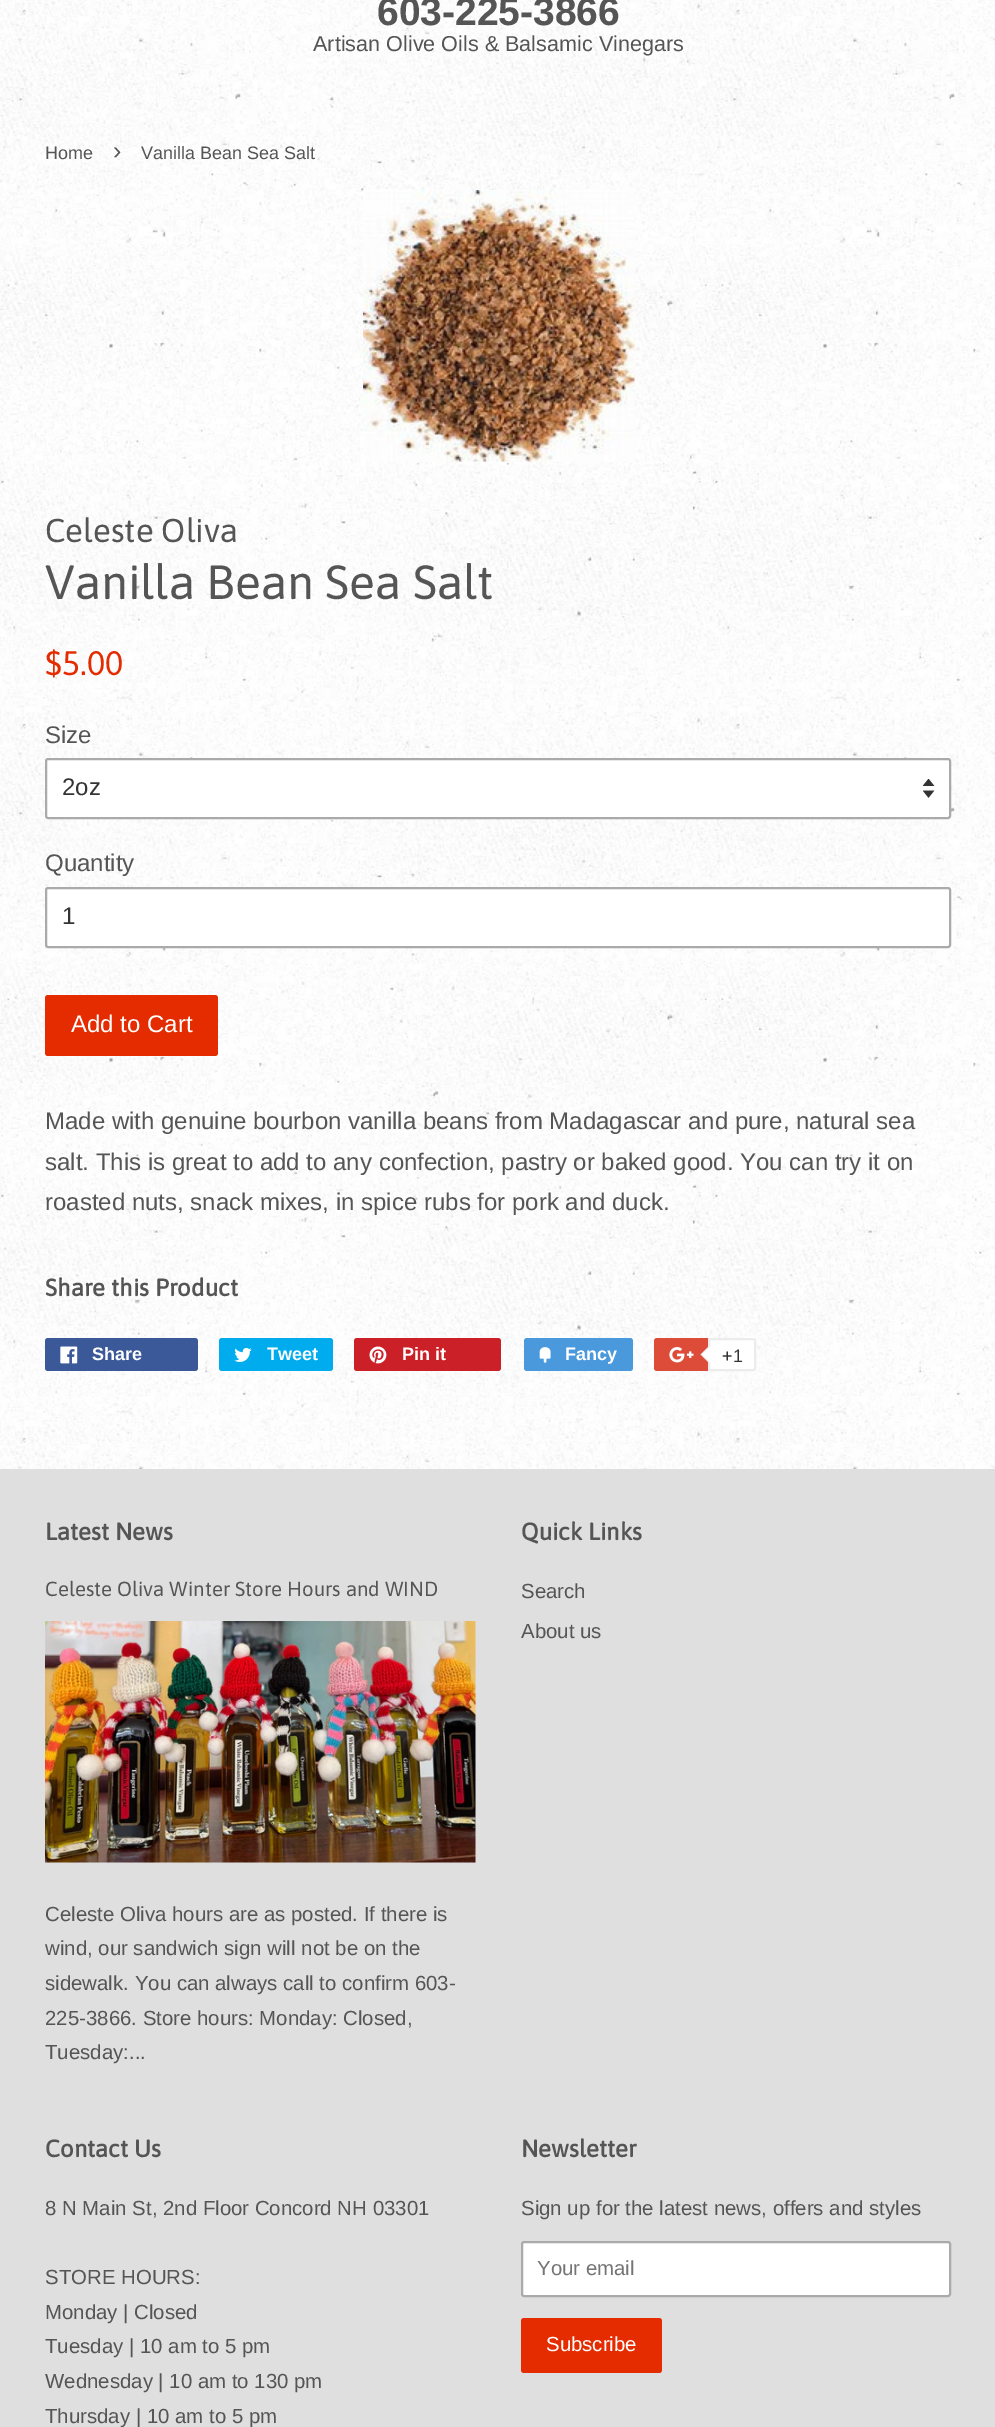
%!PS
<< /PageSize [995 2427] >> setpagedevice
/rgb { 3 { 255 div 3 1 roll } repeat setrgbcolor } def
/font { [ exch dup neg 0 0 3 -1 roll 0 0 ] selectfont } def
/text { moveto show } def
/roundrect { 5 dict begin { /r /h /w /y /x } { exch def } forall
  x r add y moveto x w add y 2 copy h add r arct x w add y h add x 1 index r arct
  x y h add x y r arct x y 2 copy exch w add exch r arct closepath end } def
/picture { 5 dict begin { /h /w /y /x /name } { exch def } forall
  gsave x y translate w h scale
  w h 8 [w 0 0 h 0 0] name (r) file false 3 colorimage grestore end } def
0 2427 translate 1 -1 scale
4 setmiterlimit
255 255 255 rgb
0 0 995 2427 rectfill
(img_01.rgb) 0 0 995 1469 picture
(img_02.rgb) 363 190 272 272 picture
45 758 906 61 3 roundrect fill
(img_03.rgb) 923 779 12 19 picture
170 170 170 rgb
2 setlinewidth
46 759 904 59 2 roundrect stroke
255 255 255 rgb
46 888 904 59 2 roundrect gsave fill grestore
170 170 170 rgb
stroke
228 44 0 rgb
45 995 173 61 3 roundrect fill
59 89 152 rgb
45 1338 153 33 3 roundrect fill
(img_04.rgb) 60 1346 18 18 picture
0 172 237 rgb
219 1338 114 33 3 roundrect fill
(img_05.rgb) 234 1347 18 15 picture
203 32 39 rgb
354 1338 147 33 3 roundrect fill
(img_06.rgb) 369 1346 18 18 picture
73 153 220 rgb
524 1338 109 33 3 roundrect fill
(img_07.rgb) 539 1347 12 16 picture
221 75 57 rgb
654 1338 99 33 3 roundrect fill
(img_08.rgb) 669 1347 25 16 picture
255 255 255 rgb
709 1339 moveto 44 0 rlineto 1 0 2 1 2 2 rcurveto 0 27 rlineto 0 1 -1 2 -2 2 rcurveto -44 0 rlineto closepath gsave fill grestore
236 236 236 rgb
stroke
709.5 1345.5 moveto 0 18 rlineto -9 -9 rlineto closepath fill
255 255 255 rgb
711 1345.5 moveto 0 18 rlineto -9 -9 rlineto closepath fill
223 223 223 rgb
0 1469 995 958 rectfill
(img_09.rgb) 45 1621 431 242 picture
255 255 255 rgb
522 2242 428 54 2 roundrect gsave fill grestore
170 170 170 rgb
stroke
228 44 0 rgb
521 2318 141 55 3 roundrect fill
/LiberationSans-Bold 39 font
85 85 85 rgb
(603-225-3866) 377 25 text
/LiberationSans-Regular 21.6 font
(Artisan Olive Oils & Balsamic Vinegars) 313 51 text
/LiberationSans-Regular 18 font
(Home) 45 159 text
/LiberationSans-Regular 25 font
(›) 113 159 text
/LiberationSans-Regular 18 font
(Vanilla Bean Sea Salt) 141 159 text
/Asap-Regular 33 font
(Celeste Oliva) 45 542 text
/Asap-Regular 48 font
(Vanilla Bean Sea Salt) 45 599 text
/Asap-Regular 34 font
228 44 0 rgb
($5.00) 45 675 text
/LiberationSans-Regular 24 font
85 85 85 rgb
(Size) 45 743 text
51 51 51 rgb
(2oz) 62 795 text
85 85 85 rgb
(Quantity) 45 871 text
51 51 51 rgb
(1) 62 924 text
255 255 255 rgb
(Add to Cart) 71 1032 text
85 85 85 rgb
(Made with genuine bourbon vanilla beans from Madagascar and pure, natural sea) 45 1129 text
(salt. This is great to add to any confection, pastry or baked good. You can try it on) 45 1170 text
(roasted nuts, snack mixes, in spice rubs for pork and duck.) 45 1210 text
/Asap-Bold 24 font
(Share this Product) 45 1296 text
/LiberationSans-Bold 18 font
255 255 255 rgb
(Share) 92 1360 text
(Tweet) 267 1360 text
(Pin it) 402 1360 text
(Fancy) 565 1360 text
/LiberationSans-Regular 18 font
51 51 51 rgb
(+1) 722 1362 text
/Asap-Bold 24 font
85 85 85 rgb
(Latest News) 45 1540 text
/Asap-Regular 20.4 font
(Celeste Oliva Winter Store Hours and WIND) 45 1596 text
/LiberationSans-Regular 20.4 font
(Celeste Oliva hours are as posted. If there is) 45 1921 text
(wind, our sandwich sign will not be on the) 45 1955 text
(sidewalk. You can always call to confirm 603-) 45 1990 text
(225-3866. Store hours: Monday: Closed,) 45 2025 text
(Tuesday:...) 45 2059 text
/Asap-Bold 24 font
(Quick Links) 521 1540 text
/LiberationSans-Regular 20.4 font
(Search) 521 1598 text
(About us) 521 1638 text
/Asap-Bold 24 font
(Contact Us) 45 2157 text
/LiberationSans-Regular 20.4 font
(8 N Main St, 2nd Floor Concord NH 03301) 45 2215 text
(STORE HOURS:) 45 2284 text
(Monday | Closed) 45 2319 text
(Tuesday | 10 am to 5 pm) 45 2353 text
(Wednesday | 10 am to 130 pm) 45 2388 text
(Thursday | 10 am to 5 pm) 45 2423 text
/Asap-Bold 24 font
(Newsletter) 521 2157 text
/LiberationSans-Regular 20.4 font
(Sign up for the latest news, offers and styles) 521 2215 text
117 117 117 rgb
(Your email) 537 2275 text
255 255 255 rgb
(Subscribe) 546 2351 text
showpage
